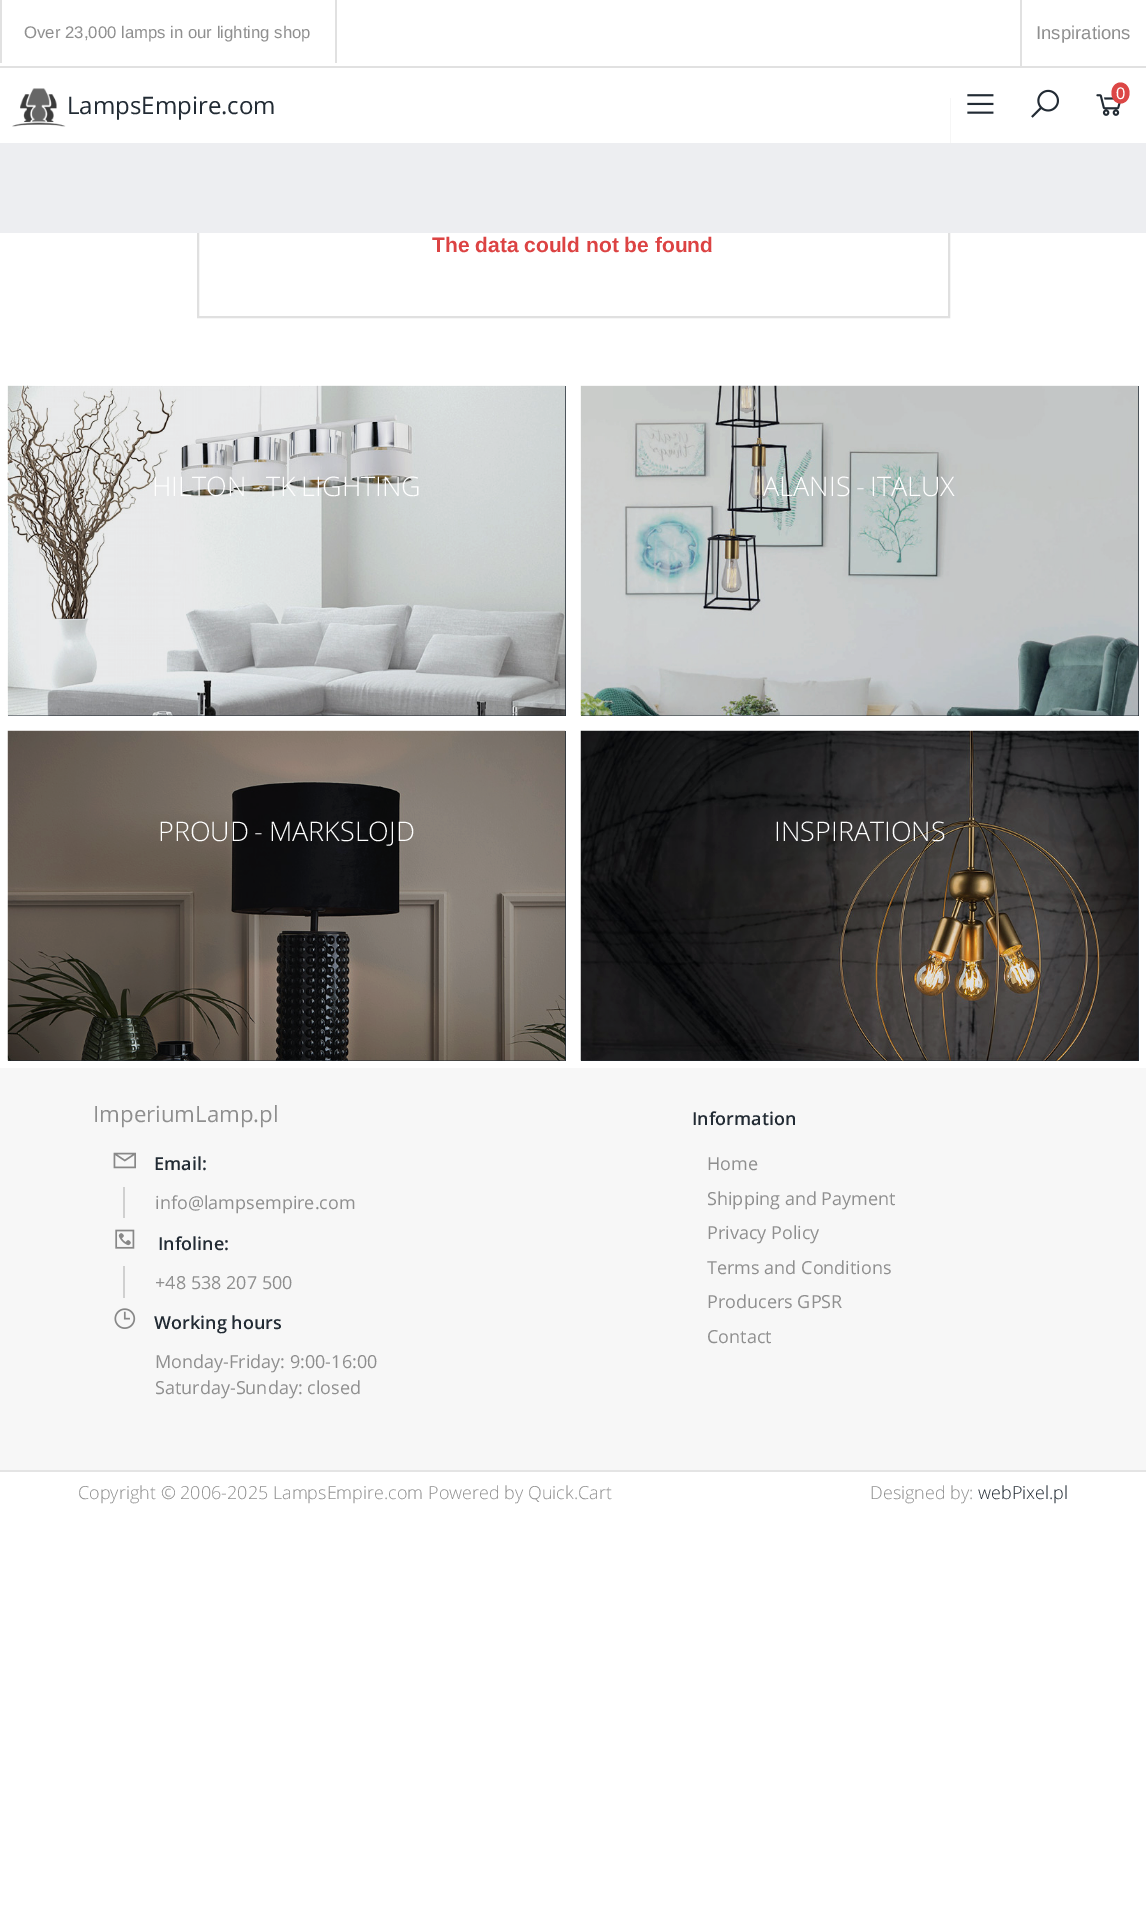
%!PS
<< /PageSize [1146 1910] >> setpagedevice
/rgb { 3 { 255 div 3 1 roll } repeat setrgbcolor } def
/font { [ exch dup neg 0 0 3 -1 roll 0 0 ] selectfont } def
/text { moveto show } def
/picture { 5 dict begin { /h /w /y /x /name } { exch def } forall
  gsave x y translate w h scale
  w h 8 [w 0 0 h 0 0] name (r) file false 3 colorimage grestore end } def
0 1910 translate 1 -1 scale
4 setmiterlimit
255 255 255 rgb
0 0 1146 1910 rectfill
225 225 225 rgb
0 66 1146 2 rectfill
335 0 2 63 rectfill
0 0 2 63 rectfill
1020 0 2 66 rectfill
224 224 224 rgb
2 setlinewidth
198 99 751 218 rectstroke
255 255 255 rgb
197 98 753 45 rectfill
(img_01.rgb) 12 88 54 39 picture
(img_02.rgb) 967 94 27 20 picture
(img_03.rgb) 1031 89 28 29 picture
(img_04.rgb) 1096 94 25 22 picture
220 71 70 rgb
1120.5 82.5 moveto 5 0 9 4.5 9 10.5 rcurveto 0 6 -4 10.5 -9 10.5 rcurveto -5 0 -9 -4.5 -9 -10.5 rcurveto 0 -6 4 -10.5 9 -10.5 rcurveto closepath fill
237 238 241 rgb
0 143 1146 90 rectfill
34 43 52 rgb
8 386 558 330 rectfill
(img_05.rgb) 7 385 559 331 picture
581 386 558 330 rectfill
(img_06.rgb) 580 385 559 331 picture
8 731 558 330 rectfill
(img_07.rgb) 7 730 559 331 picture
581 731 558 330 rectfill
(img_08.rgb) 580 730 559 331 picture
247 247 247 rgb
0 1068 1146 402 rectfill
(img_09.rgb) 113 1152 23 17 picture
208 208 208 rgb
123 1187 2 31 rectfill
(img_10.rgb) 115 1229 20 20 picture
123 1266 2 32 rectfill
(img_11.rgb) 114 1308 22 21 picture
228 228 228 rgb
0 1470 1146 2 rectfill
/LiberationSans-Regular 16.75 font
143 143 143 rgb
(Over 23,000 lamps in our lighting shop) 24 38 text
/LiberationSans-Regular 18.5 font
(Inspirations) 1036 39 text
/OpenSans-Regular 24 font
34 43 52 rgb
(LampsEmpire.com) 67 114 text
/LiberationSans-Regular 16.75 font
255 255 255 rgb
(0) 1116 99 text
/LiberationSans-Bold 21 font
220 67 67 rgb
(The data could not be found) 432 252 text
/OpenSans-Light 27 font
255 255 255 rgb
152 496 moveto -1.5 0 32 (HILTON - TK LIGHTING) widthshow
763 496 moveto -1.5 0 32 (ALANIS - ITALUX) widthshow
158 841 moveto -1.5 0 32 (PROUD - MARKSLOJD) widthshow
(INSPIRATIONS) 774 841 text
/OpenSans-Regular 22.25 font
143 143 143 rgb
(ImperiumLamp.pl) 93 1122 text
/OpenSans-SemiBold 18 font
34 43 52 rgb
(Email:) 154 1170 text
/OpenSans-Regular 18 font
143 143 143 rgb
(info@lampsempire.com) 155 1209 text
/OpenSans-SemiBold 18 font
34 43 52 rgb
(Infoline:) 158 1250 text
/OpenSans-Regular 18 font
143 143 143 rgb
(+48 538 207 500) 155 1289 text
/OpenSans-SemiBold 18 font
34 43 52 rgb
(Working hours) 154 1329 text
/OpenSans-Regular 18 font
143 143 143 rgb
(Monday-Friday: 9:00-16:00) 155 1368 text
(Saturday-Sunday: closed) 155 1394 text
/OpenSans-SemiBold 18 font
34 43 52 rgb
(Information) 692 1125 text
/OpenSans-Regular 18 font
143 143 143 rgb
(Home) 707 1170 text
(Shipping and Payment) 707 1205 text
(Privacy Policy) 707 1239 text
(Terms and Conditions) 707 1274 text
(Producers GPSR) 707 1308 text
(Contact) 707 1343 text
/OpenSans-Light 18 font
(Copyright © 2006-2025 LampsEmpire.com Powered by Quick.Cart) 78 1499 text
(Designed by:) 870 1499 text
34 43 52 rgb
(webPixel.pl) 978 1499 text
showpage
